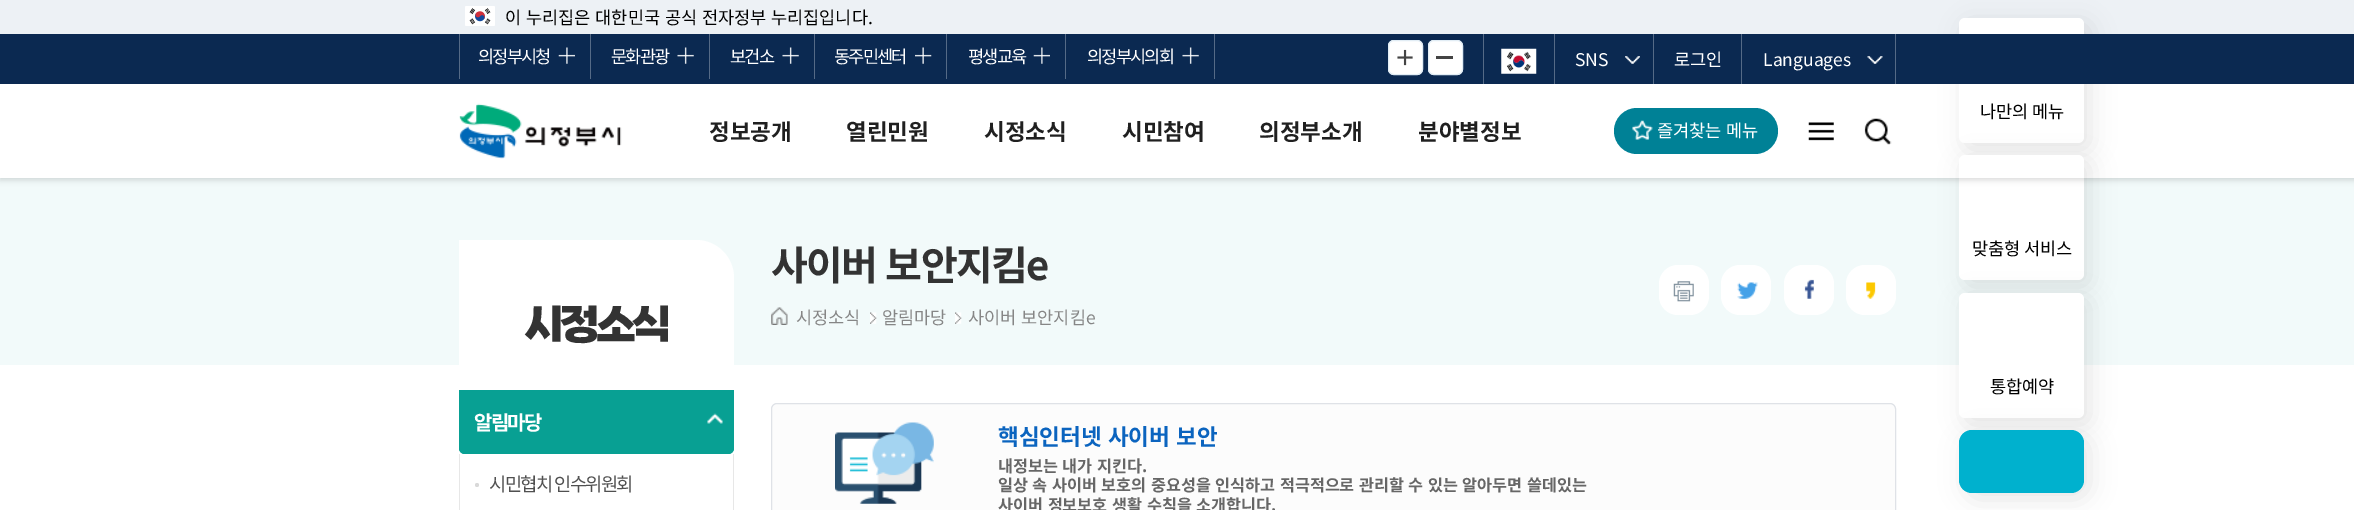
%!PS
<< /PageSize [2354 510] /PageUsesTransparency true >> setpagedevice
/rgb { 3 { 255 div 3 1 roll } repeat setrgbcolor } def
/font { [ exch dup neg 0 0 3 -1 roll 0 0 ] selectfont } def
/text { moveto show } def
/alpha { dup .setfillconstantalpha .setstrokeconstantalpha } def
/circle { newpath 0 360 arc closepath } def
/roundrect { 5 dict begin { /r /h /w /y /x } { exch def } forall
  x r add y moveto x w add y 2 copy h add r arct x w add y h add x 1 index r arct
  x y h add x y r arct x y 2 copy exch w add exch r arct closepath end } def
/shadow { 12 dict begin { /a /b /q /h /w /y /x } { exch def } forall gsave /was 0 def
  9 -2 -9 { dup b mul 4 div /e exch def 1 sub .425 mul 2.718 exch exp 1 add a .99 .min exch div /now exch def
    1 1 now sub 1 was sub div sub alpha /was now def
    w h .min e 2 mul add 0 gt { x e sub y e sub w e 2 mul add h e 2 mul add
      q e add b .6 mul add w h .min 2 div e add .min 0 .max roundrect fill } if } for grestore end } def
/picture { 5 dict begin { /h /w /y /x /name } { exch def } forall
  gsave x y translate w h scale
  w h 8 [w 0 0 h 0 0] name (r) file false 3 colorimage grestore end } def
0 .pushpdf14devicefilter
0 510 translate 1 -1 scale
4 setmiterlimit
255 255 255 rgb
0 0 2354 510 rectfill
237 241 245 rgb
0 0 2354 34 rectfill
(img_01.rgb) 465 6 30 20 picture
242 250 250 rgb
0 178 2354 187 rectfill
0 0 0 rgb
1965 24 125 125 6 12.5 0.1 shadow
255 255 255 rgb
1959 18 125 125 6 roundrect fill
0 0 0 rgb
1965 161 125 125 6 12.5 0.1 shadow
255 255 255 rgb
1959 155 125 125 6 roundrect fill
gsave
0 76 moveto 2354 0 rlineto 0 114 rlineto -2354 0 rlineto closepath 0 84 moveto 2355 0 rlineto 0 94 rlineto -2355 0 rlineto closepath eoclip newpath
0 0 0 rgb
0 86 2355 94 0 3 0.15 shadow
grestore
11 41 81 rgb
0 34 2354 50 rectfill
85 106 134 rgb
459 34 1 45 rectfill
590 34 1 45 rectfill
(img_02.rgb) 558 47 17 17 picture
709 34 1 45 rectfill
(img_03.rgb) 677 47 17 17 picture
814 34 1 45 rectfill
(img_03.rgb) 782 47 17 17 picture
946 34 1 45 rectfill
(img_04.rgb) 915 47 17 17 picture
1065 34 1 45 rectfill
(img_05.rgb) 1033 47 17 17 picture
1214 34 1 45 rectfill
(img_03.rgb) 1182 47 17 17 picture
1483 34 1 50 rectfill
255 255 255 rgb
1388 40 35 35 6 roundrect fill
(img_06.rgb) 1397 49 16 17 picture
226 237 245 rgb
1388.5 40.5 34 34 5.5 roundrect stroke
255 255 255 rgb
1428 40 35 35 6 roundrect fill
68 68 68 rgb
1436 56 17 3 rectfill
226 237 245 rgb
1428.5 40.5 34 34 5.5 roundrect stroke
85 106 134 rgb
1554 34 1 50 rectfill
(img_07.rgb) 1501 48 36 26 picture
1653 34 1 50 rectfill
(img_08.rgb) 1625 56 15 8 picture
1741 34 1 50 rectfill
1895 34 1 50 rectfill
(img_09.rgb) 1867 56 16 8 picture
(img_10.rgb) 459 103 163 56 picture
0 129 150 rgb
1614 108 164 46 23 roundrect fill
(img_11.rgb) 1632 120 21 20 picture
(img_12.rgb) 1808 122 26 19 picture
(img_13.rgb) 1864 118 28 27 picture
255 255 255 rgb
459 240 moveto 237 0 rlineto 21 0 38 17 38 38 rcurveto 0 112 rlineto -275 0 rlineto closepath fill
8 160 147 rgb
459 390 moveto 275 0 rlineto 0 58 rlineto 0 3.5 -2.5 6 -6 6 rcurveto -263 0 rlineto -3.5 0 -6 -2.5 -6 -6 rcurveto closepath fill
(img_14.rgb) 707 413 16 11 picture
459 390 moveto 275 0 rlineto 0 58 rlineto 0 3 -3 6 -6 6 rcurveto -263 0 rlineto -3 0 -6 -3 -6 -6 rcurveto closepath 460 390 moveto 272 0 rlineto 0 58 rlineto 0 2 -2 4 -4 4 rcurveto -263 0 rlineto -3 0 -5 -2 -5 -4 rcurveto closepath eofill
231 231 231 rgb
733 454 1 56 rectfill
459 454 1 56 rectfill
217 217 217 rgb
477 485 2 circle fill
255 255 255 rgb
1659 265 50 50 19 roundrect fill
(img_15.rgb) 1673 281 21 21 picture
1721 265 50 50 19 roundrect fill
(img_16.rgb) 1737 282 21 17 picture
1784 265 50 50 19 roundrect fill
(img_17.rgb) 1804 279 10 20 picture
1846 265 50 50 19 roundrect fill
(img_18.rgb) 1866 282 10 17 picture
(img_19.rgb) 771 307 17 18 picture
(img_20.rgb) 870 312 7 12 picture
(img_21.rgb) 955 312 7 12 picture
252 252 252 rgb
771.5 403.5 1124 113 5.5 roundrect gsave fill grestore
223 226 231 rgb
stroke
(img_22.rgb) 835 422 99 82 picture
0 0 0 rgb
1965 299 125 125 6 12.5 0.1 shadow
255 255 255 rgb
1959 293 125 125 6 roundrect fill
0 0 0 rgb
1965 436 125 63 13 12.5 0.1 shadow
0 177 206 rgb
1959 430 125 63 13 roundrect fill
/NotoSansKR-Regular 17.5 font
0 0 0 rgb
505 24 moveto 1 0 32 (이 누리집은 대한민국 공식 전자정부 누리집입니다.) widthshow
255 255 255 rgb
478 63 moveto -1.75 0 (의정부시청) ashow
611 63 moveto -1.75 0 (문화관광) ashow
730 63 moveto -1.75 0 (보건소) ashow
834 63 moveto -1.75 0 (동주민센터) ashow
968 63 moveto -1.75 0 (평생교육) ashow
1087 63 moveto -1.75 0 (의정부시의회) ashow
(SNS) 1575 66 text
(로그인) 1674 66 text
(Languages) 1763 66 text
/NotoSansKR-Bold 22.5 font
32 32 32 rgb
(정보공개) 709 140 text
(열린민원) 846 140 text
(시정소식) 984 140 text
(시민참여) 1122 140 text
(의정부소개) 1259 140 text
(분야별정보) 1418 140 text
/NotoSansKR-Regular 17.5 font
255 255 255 rgb
1657 137 moveto 1 0 32 (즐겨찾는 메뉴) widthshow
/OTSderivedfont-ExtraBold 45 font
51 51 51 rgb
525 342 moveto -3.5 0 (시정소식) ashow
/NotoSansKR-Bold 20 font
255 255 255 rgb
474 430 moveto -1.75 0 (알림마당) ashow
/NotoSansKR-Regular 18.75 font
80 80 80 rgb
489 491 moveto 1 0 32 -1.75 0 (시민협치 인수위원회) awidthshow
/NotoSansKR-Bold 40 font
51 51 51 rgb
771 280 moveto 2 0 32 -1.75 0 (사이버 보안지킴e) awidthshow
/NotoSansKR-Regular 17.5 font
134 134 134 rgb
(시정소식) 796 324 text
(알림마당) 882 324 text
968 324 moveto 1 0 32 (사이버 보안지킴e) widthshow
/NotoSansKR-Bold 22.5 font
11 100 191 rgb
998 445 moveto 1 0 32 (핵심인터넷 사이버 보안) widthshow
/NotoSansKR-Bold 16.25 font
102 102 102 rgb
998 472 moveto 1 0 32 (내정보는 내가 지킨다.) widthshow
998 491 moveto 0.9 0 32 (일상 속 사이버 보호의 중요성을 인식하고 적극적으로 관리할 수 있는 알아두면 쓸데있는) widthshow
998 511 moveto 1 0 32 (사이버 정보보호 생활 수칙을 소개합니다.) widthshow
/NotoSansKR-Regular 17.5 font
0 0 0 rgb
1980 118 moveto 1 0 32 -0.25 0 (나만의 메뉴) awidthshow
1972 255 moveto 1 0 32 -0.25 0 (맞춤형 서비스) awidthshow
1990 393 moveto -0.25 0 (통합예약) ashow
.poppdf14devicefilter showpage
